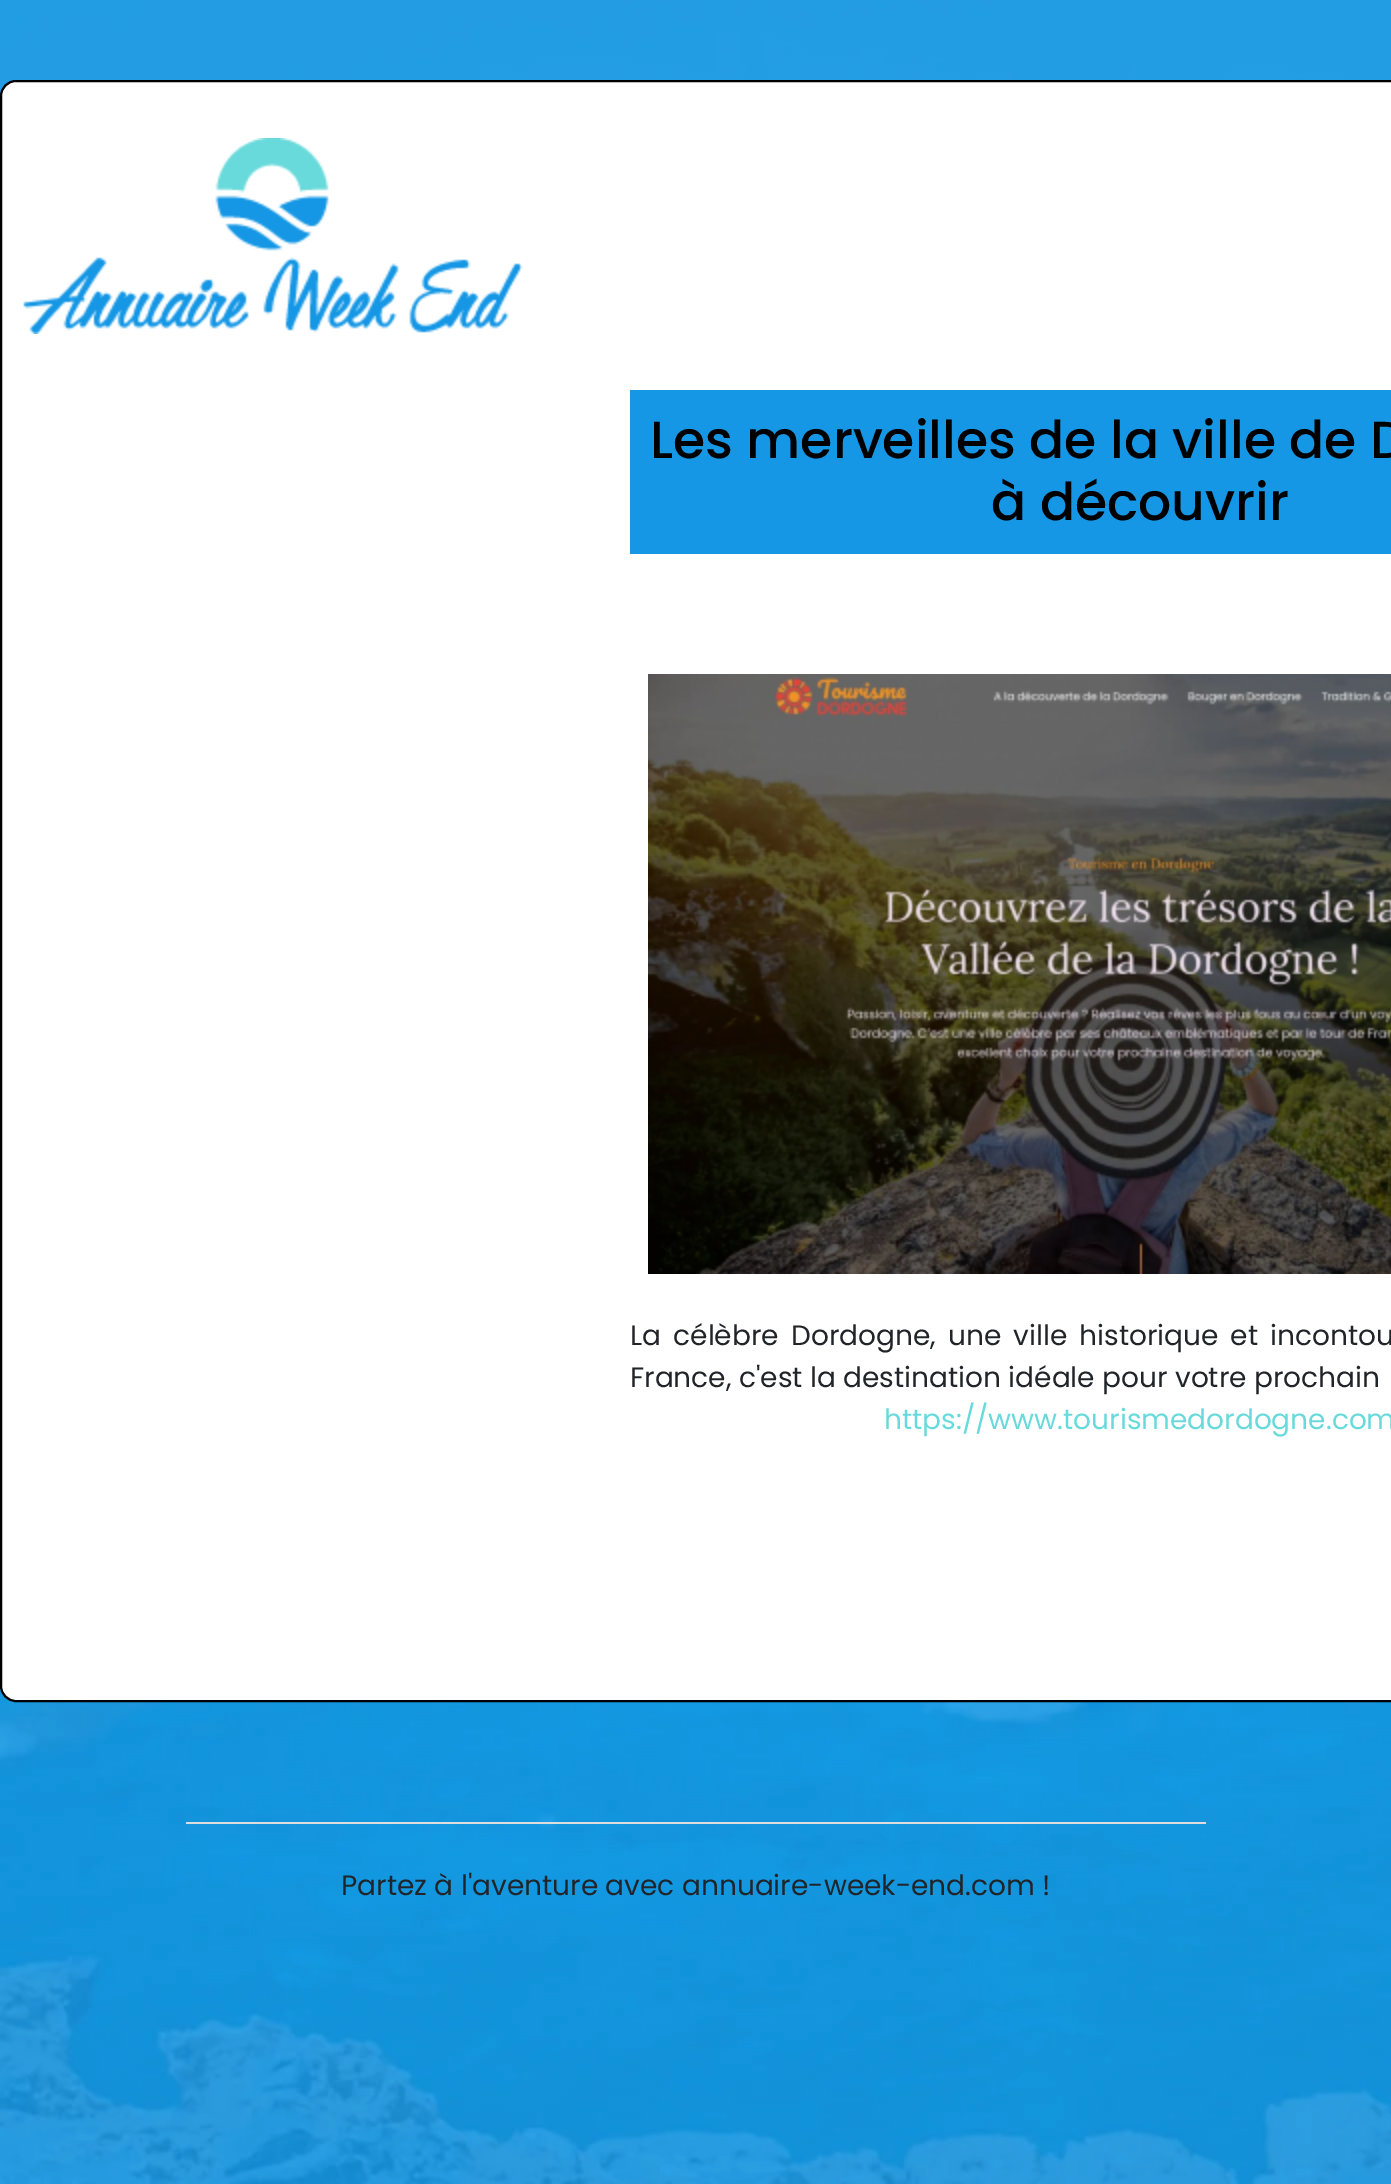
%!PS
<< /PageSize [1391 2184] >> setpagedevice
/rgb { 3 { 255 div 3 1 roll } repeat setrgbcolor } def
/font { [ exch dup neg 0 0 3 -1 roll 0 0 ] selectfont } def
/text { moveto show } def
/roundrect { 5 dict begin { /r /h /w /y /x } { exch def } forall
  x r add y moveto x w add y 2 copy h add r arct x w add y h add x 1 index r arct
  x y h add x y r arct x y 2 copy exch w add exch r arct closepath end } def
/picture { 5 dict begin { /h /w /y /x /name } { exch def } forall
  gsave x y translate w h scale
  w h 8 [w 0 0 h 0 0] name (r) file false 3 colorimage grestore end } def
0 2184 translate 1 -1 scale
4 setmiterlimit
255 255 255 rgb
0 0 1391 2184 rectfill
(img_01.rgb) 0 0 1391 2184 picture
1 81 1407 1620 15 roundrect gsave fill grestore
0 0 0 rgb
2 setlinewidth
stroke
(img_02.rgb) 23 138 500 196 picture
21 151 229 rgb
630 390 761 164 rectfill
(img_03.rgb) 648 674 743 600 picture
221 221 221 rgb
186 1822 1020 2 rectfill
/Poppins-Medium 52 font
0 0 0 rgb
(Les merveilles de la ville de D) 650 458 text
(à découvrir) 991 520 text
/Poppins-Regular 28 font
33 37 41 rgb
630 1345 moveto 4.75 0 32 (La célèbre Dordogne, une ville historique et incontou) widthshow
(France, c'est la destination idéale pour votre prochain) 630 1387 text
105 218 219 rgb
(https://www.tourismedordogne.com) 884 1429 text
33 37 41 rgb
(Partez à l'aventure avec annuaire-week-end.com !) 341 1895 text
showpage
